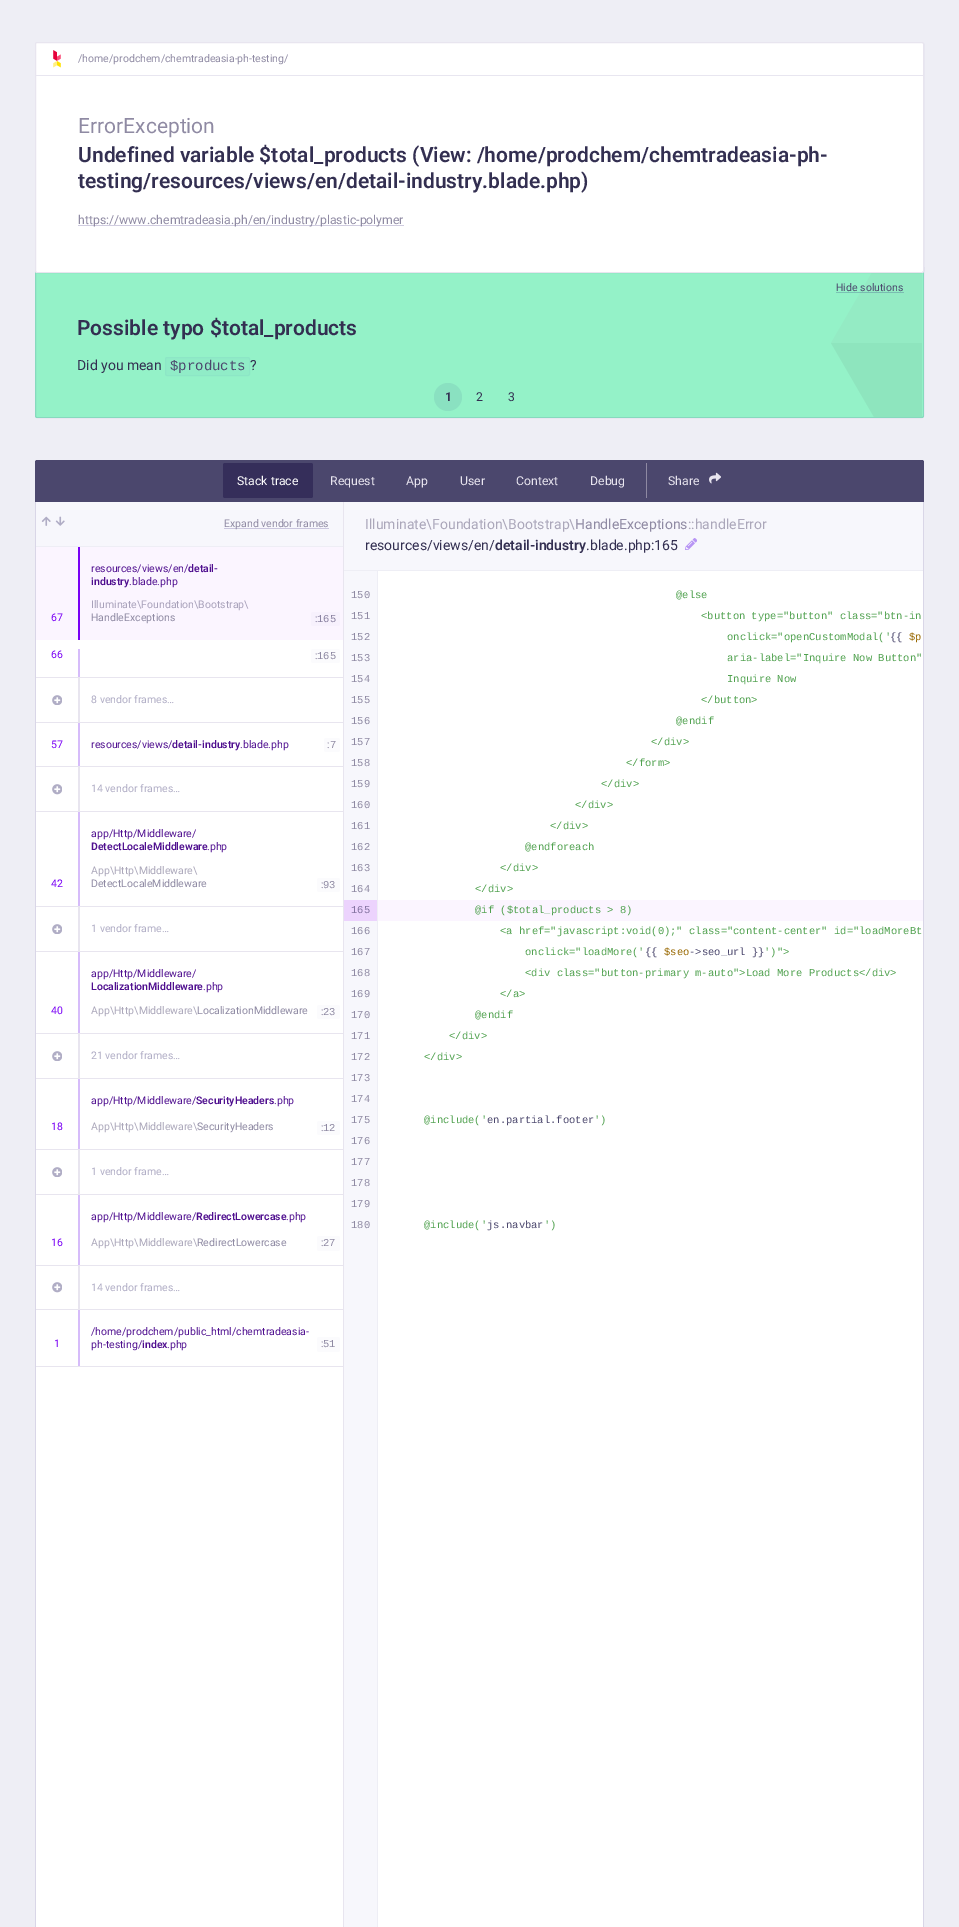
%!PS
<< /PageSize [959 1927] /PageUsesTransparency true >> setpagedevice
/rgb { 3 { 255 div 3 1 roll } repeat setrgbcolor } def
/font { [ exch dup neg 0 0 3 -1 roll 0 0 ] selectfont } def
/text { moveto show } def
/alpha { dup .setfillconstantalpha .setstrokeconstantalpha } def
/circle { newpath 0 360 arc closepath } def
/roundrect { 5 dict begin { /r /h /w /y /x } { exch def } forall
  x r add y moveto x w add y 2 copy h add r arct x w add y h add x 1 index r arct
  x y h add x y r arct x y 2 copy exch w add exch r arct closepath end } def
/picture { 5 dict begin { /h /w /y /x /name } { exch def } forall
  gsave x y translate w h scale
  w h 8 [w 0 0 h 0 0] name (r) file false 3 colorimage grestore end } def
0 .pushpdf14devicefilter
0 1927 translate 1 -1 scale
4 setmiterlimit
238 238 245 rgb
0 0 959 1927 rectfill
148 242 200 rgb
35 267 moveto 889 0 rlineto 0 149 rlineto 0 1 -1 2 -2 2 rcurveto -885 0 rlineto -1 0 -2 -1 -2 -2 rcurveto closepath fill
0.1 alpha
25 0 100 rgb
35.5 267.5 moveto 888 0 rlineto 0 148.5 rlineto 0 1 -0.5 1.5 -1.5 1.5 rcurveto -885 0 rlineto -1 0 -1.5 -0.5 -1.5 -1.5 rcurveto closepath stroke
1 alpha
148 235 196 rgb
922 343 moveto -91 0 rlineto 43 -74 rlineto 48 0 rlineto closepath fill
255 255 255 rgb
35 42 889 231 2 roundrect fill
0.1 alpha
25 0 100 rgb
35.5 42.5 888 230 1.5 roundrect stroke
1 alpha
232 230 240 rgb
36 75 887 1 rectfill
(img_01.rgb) 53 50 8 18 picture
208 204 224 rgb
78 225 326 1 rectfill
0.2 alpha
20 0 100 rgb
836 292 68 1 rectfill
1 alpha
142 229 190 rgb
922 417 moveto -48 0 rlineto -43 -74 rlineto 91 0 rlineto closepath fill
144 236 199 rgb
165.5 357.5 84 18 1.5 roundrect gsave fill grestore
141 230 198 rgb
stroke
138 225 193 rgb
448 397 14 circle fill
75 71 109 rgb
37 460 moveto 885 0 rlineto 1 0 2 1 2 2 rcurveto 0 40 rlineto -889 0 rlineto 0 -40 rlineto 0 -1 1 -2 2 -2 rcurveto closepath fill
53 46 90 rgb
223 463 90 35 2 roundrect fill
142 137 162 rgb
646 463 1 35 rectfill
(img_02.rgb) 709 472 12 12 picture
217 214 231 rgb
924 502 moveto 0 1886 rlineto -1 -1 rlineto 0 -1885 rlineto closepath fill
35 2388 moveto 0 -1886 rlineto 1 0 rlineto 0 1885 rlineto closepath fill
255 255 255 rgb
36 640 307 1287 rectfill
232 229 239 rgb
343 502 1 1425 rectfill
247 247 252 rgb
36 502 307 44 rectfill
(img_03.rgb) 41 516 10 10 picture
(img_04.rgb) 55 516 10 10 picture
202 198 222 rgb
224 528 105 1 rectfill
232 229 239 rgb
36 677 307 1 rectfill
251 245 255 rgb
36 547 307 93 rectfill
121 0 245 rgb
78 547 2 93 rectfill
247 241 253 rgb
311 612 29 14 2 roundrect fill
214 188 250 rgb
78 649 2 28 rectfill
251 251 253 rgb
311 649 29 14 2 roundrect fill
232 229 239 rgb
36 722 307 1 rectfill
(img_05.rgb) 52 695 10 10 picture
78 678 2 44 rectfill
36 766 307 1 rectfill
214 188 250 rgb
78 723 2 43 rectfill
251 251 253 rgb
324 738 16 14 2 roundrect fill
232 229 239 rgb
36 811 307 1 rectfill
(img_06.rgb) 52 784 10 11 picture
78 767 2 44 rectfill
36 906 307 1 rectfill
214 188 250 rgb
78 812 2 94 rectfill
251 251 253 rgb
317 878 23 14 2 roundrect fill
232 229 239 rgb
36 951 307 1 rectfill
(img_05.rgb) 52 924 10 10 picture
78 907 2 44 rectfill
36 1033 307 1 rectfill
214 188 250 rgb
78 952 2 81 rectfill
251 251 253 rgb
317 1005 23 14 2 roundrect fill
232 229 239 rgb
36 1078 307 1 rectfill
(img_05.rgb) 52 1051 10 10 picture
78 1034 2 44 rectfill
36 1149 307 1 rectfill
214 188 250 rgb
78 1079 2 70 rectfill
251 251 253 rgb
317 1121 23 14 2 roundrect fill
232 229 239 rgb
36 1194 307 1 rectfill
(img_05.rgb) 52 1167 10 10 picture
78 1150 2 44 rectfill
36 1265 307 1 rectfill
214 188 250 rgb
78 1195 2 70 rectfill
251 251 253 rgb
317 1236 23 15 2 roundrect fill
232 229 239 rgb
36 1309 307 1 rectfill
(img_06.rgb) 52 1282 10 11 picture
78 1266 2 43 rectfill
36 1366 307 1 rectfill
214 188 250 rgb
78 1310 2 56 rectfill
251 251 253 rgb
317 1337 23 15 2 roundrect fill
247 247 252 rgb
344 502 579 68 rectfill
(img_07.rgb) 685 538 12 12 picture
255 255 255 rgb
378 571 545 1356 rectfill
247 247 252 rgb
344 571 33 1356 rectfill
236 211 253 rgb
344 900 33 21 rectfill
251 245 255 rgb
378 900 545 21 rectfill
/Roboto-Regular 10.5 font
143 138 163 rgb
(/home/prodchem/chemtradeasia-ph-testing/) 78 62 text
/Roboto-Regular 21 font
(ErrorException) 78 133 text
/Roboto-SemiBold 21 font
51 47 81 rgb
(Undefined variable $total_products \(View: /home/prodchem/chemtradeasia-ph-) 78 162 text
(testing/resources/views/en/detail-industry.blade.php\)) 78 188 text
/Roboto-Regular 12.25 font
143 138 163 rgb
(https://www.chemtradeasia.ph/en/industry/plastic-polymer) 78 224 text
/Roboto-Regular 10.5 font
75 71 109 rgb
(Hide solutions) 836 291 text
/Roboto-SemiBold 21 font
51 47 81 rgb
(Possible typo $total_products) 77 335 text
/Roboto-Regular 14 font
(Did you mean) 77 370 text
/LiberationMono-Regular 14 font
75 71 109 rgb
($products) 170 370 text
/Roboto-Regular 14 font
51 47 81 rgb
(?) 250 370 text
/Roboto-SemiBold 12.25 font
(1) 445 401 text
/Roboto-Regular 12.25 font
(2) 476 401 text
(3) 508 401 text
255 255 255 rgb
(Stack trace) 237 485 text
232 229 239 rgb
(Request) 330 485 text
(App) 406 485 text
(User) 460 485 text
(Context) 516 485 text
(Debug) 590 485 text
(Share) 668 485 text
/Roboto-Regular 10.5 font
143 138 163 rgb
(Expand vendor frames) 224 527 text
121 0 245 rgb
(67) 51 621 text
79 15 143 rgb
(resources/views/en/) 91 572 text
/Roboto-SemiBold 10.5 font
(detail-) 188 572 text
(industry) 91 585 text
/Roboto-Regular 10.5 font
(.blade.php) 129 585 text
168 161 186 rgb
(Illuminate\\Foundation\\Bootstrap\\) 91 608 text
143 138 163 rgb
(HandleExceptions) 91 621 text
139 131 162 rgb
(:) 315 622 text
/LiberationMono-Regular 10.5 font
(165) 317 622 text
/Roboto-Regular 10.5 font
121 0 245 rgb
(66) 51 658 text
143 138 163 rgb
(:) 315 659 text
/LiberationMono-Regular 10.5 font
(165) 317 659 text
/Roboto-Regular 10.5 font
176 173 197 rgb
(8 vendor frames…) 91 703 text
121 0 245 rgb
(57) 51 748 text
79 15 143 rgb
(resources/views/) 91 748 text
/Roboto-SemiBold 10.5 font
(detail-industry) 172 748 text
/Roboto-Regular 10.5 font
(.blade.php) 240 748 text
143 138 163 rgb
(:) 327 748 text
/LiberationMono-Regular 10.5 font
(7) 330 748 text
/Roboto-Regular 10.5 font
176 173 197 rgb
(14 vendor frames…) 91 792 text
121 0 245 rgb
(42) 51 887 text
79 15 143 rgb
(app/Http/Middleware/) 91 837 text
/Roboto-SemiBold 10.5 font
(DetectLocaleMiddleware) 91 850 text
/Roboto-Regular 10.5 font
(.php) 207 850 text
171 167 186 rgb
(App\\Http\\Middleware\\) 91 874 text
143 138 163 rgb
(DetectLocaleMiddleware) 91 887 text
(:) 321 888 text
/LiberationMono-Regular 10.5 font
(93) 323 888 text
/Roboto-Regular 10.5 font
176 173 197 rgb
(1 vendor frame…) 91 932 text
121 0 245 rgb
(40) 51 1014 text
79 15 143 rgb
(app/Http/Middleware/) 91 977 text
/Roboto-SemiBold 10.5 font
(LocalizationMiddleware) 91 990 text
/Roboto-Regular 10.5 font
(.php) 203 990 text
171 167 186 rgb
(App\\Http\\Middleware\\) 91 1014 text
143 138 163 rgb
(LocalizationMiddleware) 197 1014 text
(:) 321 1015 text
/LiberationMono-Regular 10.5 font
(23) 323 1015 text
/Roboto-Regular 10.5 font
176 173 197 rgb
(21 vendor frames…) 91 1059 text
121 0 245 rgb
(18) 51 1130 text
79 15 143 rgb
(app/Http/Middleware/) 91 1104 text
/Roboto-SemiBold 10.5 font
(SecurityHeaders) 196 1104 text
/Roboto-Regular 10.5 font
(.php) 274 1104 text
171 167 186 rgb
(App\\Http\\Middleware\\) 91 1130 text
143 138 163 rgb
(SecurityHeaders) 197 1130 text
(:) 321 1131 text
/LiberationMono-Regular 10.5 font
(12) 323 1131 text
/Roboto-Regular 10.5 font
176 173 197 rgb
(1 vendor frame…) 91 1175 text
121 0 245 rgb
(16) 51 1246 text
79 15 143 rgb
(app/Http/Middleware/) 91 1220 text
/Roboto-SemiBold 10.5 font
(RedirectLowercase) 196 1220 text
/Roboto-Regular 10.5 font
(.php) 286 1220 text
171 167 186 rgb
(App\\Http\\Middleware\\) 91 1246 text
143 138 163 rgb
(RedirectLowercase) 197 1246 text
(:) 321 1246 text
/LiberationMono-Regular 10.5 font
(27) 323 1246 text
/Roboto-Regular 10.5 font
176 173 197 rgb
(14 vendor frames…) 91 1291 text
121 0 245 rgb
(1) 54 1347 text
79 15 143 rgb
(/home/prodchem/public_html/chemtradeasia-) 91 1335 text
(ph-testing/) 91 1348 text
/Roboto-SemiBold 10.5 font
(index) 142 1348 text
/Roboto-Regular 10.5 font
(.php) 167 1348 text
143 138 163 rgb
(:) 321 1347 text
/LiberationMono-Regular 10.5 font
(51) 323 1347 text
/Roboto-Regular 14 font
171 167 186 rgb
(Illuminate\\Foundation\\Bootstrap\\) 365 529 text
143 138 163 rgb
(HandleExceptions) 575 529 text
171 167 186 rgb
(::handleError) 688 529 text
51 47 81 rgb
(resources/views/en/) 365 550 text
/Roboto-SemiBold 14 font
(detail-industry) 495 550 text
/Roboto-Regular 14 font
(.blade.php:165) 586 550 text
/LiberationMono-Regular 10.5 font
143 138 163 rgb
(150) 351 598 text
(151) 351 619 text
(152) 351 640 text
(153) 351 661 text
(154) 351 682 text
(155) 351 703 text
(156) 351 724 text
(157) 351 745 text
(158) 351 766 text
(159) 351 787 text
(160) 351 808 text
(161) 351 829 text
(162) 351 850 text
(163) 351 871 text
(164) 351 892 text
133 116 162 rgb
(165) 351 913 text
143 138 163 rgb
(166) 351 934 text
(167) 351 955 text
(168) 351 976 text
(169) 351 997 text
(170) 351 1018 text
(171) 351 1039 text
(172) 351 1060 text
(173) 351 1081 text
(174) 351 1102 text
(175) 351 1123 text
(176) 351 1144 text
(177) 351 1165 text
(178) 351 1186 text
(179) 351 1207 text
(180) 351 1228 text
80 161 79 rgb
(@else) 676 598 text
(<button type="button" class="btn-in) 701 619 text
(onclick="openCustomModal\(') 727 640 text
75 71 109 rgb
({{) 890 640 text
152 104 1 rgb
($p) 909 640 text
80 161 79 rgb
(aria-label="Inquire Now Button") 727 661 text
(Inquire Now) 727 682 text
(</button>) 701 703 text
(@endif) 676 724 text
(</div>) 651 745 text
(</form>) 626 766 text
(</div>) 601 787 text
(</div>) 575 808 text
(</div>) 550 829 text
(@endforeach) 525 850 text
(</div>) 500 871 text
(</div>) 475 892 text
(@if \($total_products > 8\)) 475 913 text
(<a href="javascript:void\(0\);" class="content-center" id="loadMoreBt) 500 934 text
(onclick="loadMore\(') 525 955 text
75 71 109 rgb
({{) 645 955 text
152 104 1 rgb
($seo) 664 955 text
75 71 109 rgb
(->seo_url }}) 689 955 text
80 161 79 rgb
('\)">) 764 955 text
(<div class="button-primary m-auto">Load More Products</div>) 525 976 text
(</a>) 500 997 text
(@endif) 475 1018 text
(</div>) 449 1039 text
(</div>) 424 1060 text
(@include\(') 424 1123 text
75 71 109 rgb
(en.partial.footer) 487 1123 text
80 161 79 rgb
('\)) 594 1123 text
(@include\(') 424 1228 text
75 71 109 rgb
(js.navbar) 487 1228 text
80 161 79 rgb
('\)) 544 1228 text
.poppdf14devicefilter showpage
